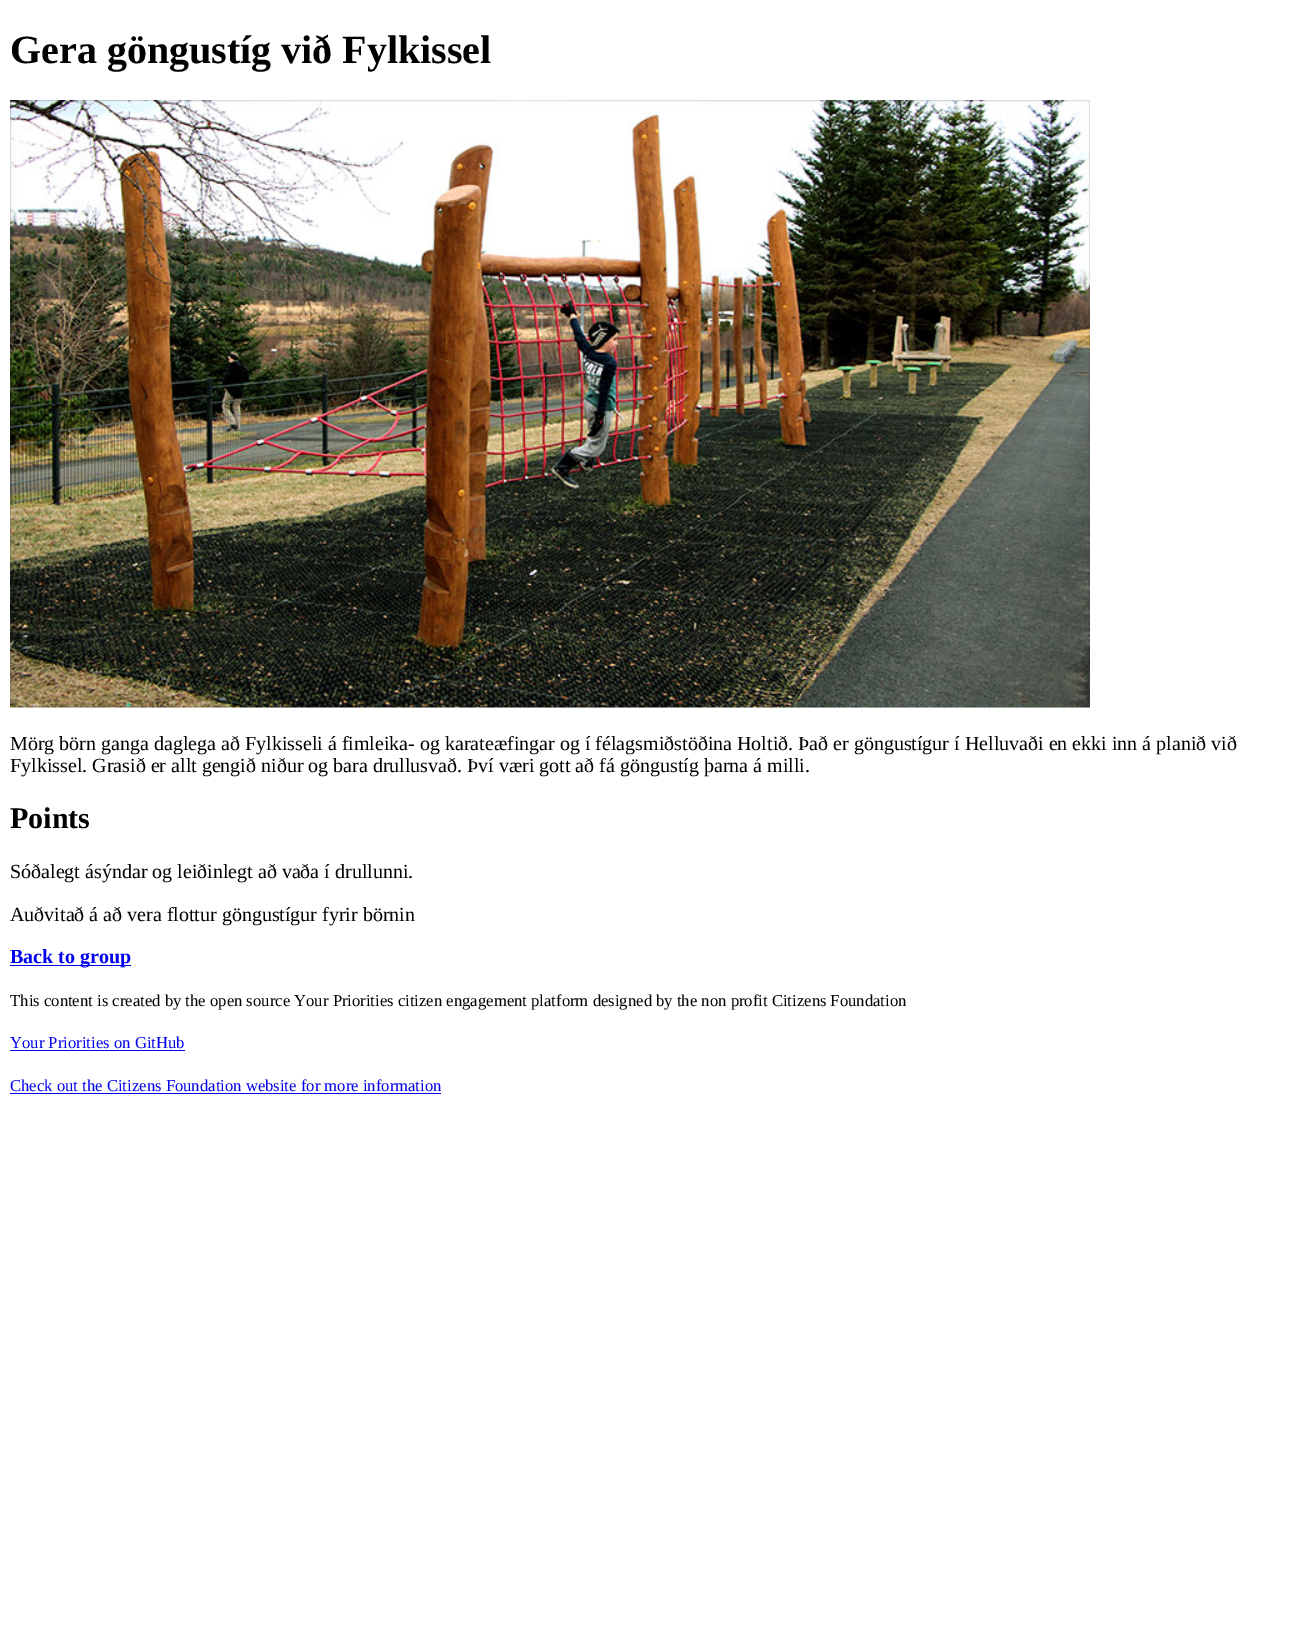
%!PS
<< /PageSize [1314 1629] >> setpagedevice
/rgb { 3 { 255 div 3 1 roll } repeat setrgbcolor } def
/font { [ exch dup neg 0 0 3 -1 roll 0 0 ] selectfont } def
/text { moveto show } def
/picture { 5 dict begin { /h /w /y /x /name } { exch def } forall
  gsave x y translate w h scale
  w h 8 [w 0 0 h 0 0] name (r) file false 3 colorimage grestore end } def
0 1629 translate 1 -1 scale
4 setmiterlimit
255 255 255 rgb
0 0 1314 1629 rectfill
(img_01.rgb) 10 100 1080 608 picture
0 0 238 rgb
10 965 121 1 rectfill
10 1050 175 1 rectfill
10 1093 431 1 rectfill
/LiberationSerif-Bold 40 font
0 0 0 rgb
(Gera göngustíg við Fylkissel) 10 63 text
/LiberationSerif-Regular 20 font
(Mörg börn ganga daglega að Fylkisseli á fimleika- og karateæfingar og í félagsmiðstöðina Holtið. Það er göngustígur í Helluvaði en ekki inn á planið við) 10 750 text
(Fylkissel. Grasið er allt gengið niður og bara drullusvað. Því væri gott að fá göngustíg þarna á milli.) 10 772 text
/LiberationSerif-Bold 30 font
(Points) 10 828 text
/LiberationSerif-Regular 20 font
(Sóðalegt ásýndar og leiðinlegt að vaða í drullunni.) 10 878 text
(Auðvitað á að vera flottur göngustígur fyrir börnin) 10 921 text
/LiberationSerif-Bold 20 font
0 0 238 rgb
(Back to group) 10 963 text
/LiberationSerif-Regular 16.67 font
0 0 0 rgb
(This content is created by the open source Your Priorities citizen engagement platform designed by the non profit Citizens Foundation) 10 1006 text
0 0 238 rgb
(Your Priorities on GitHub) 10 1048 text
(Check out the Citizens Foundation website for more information) 10 1091 text
showpage
